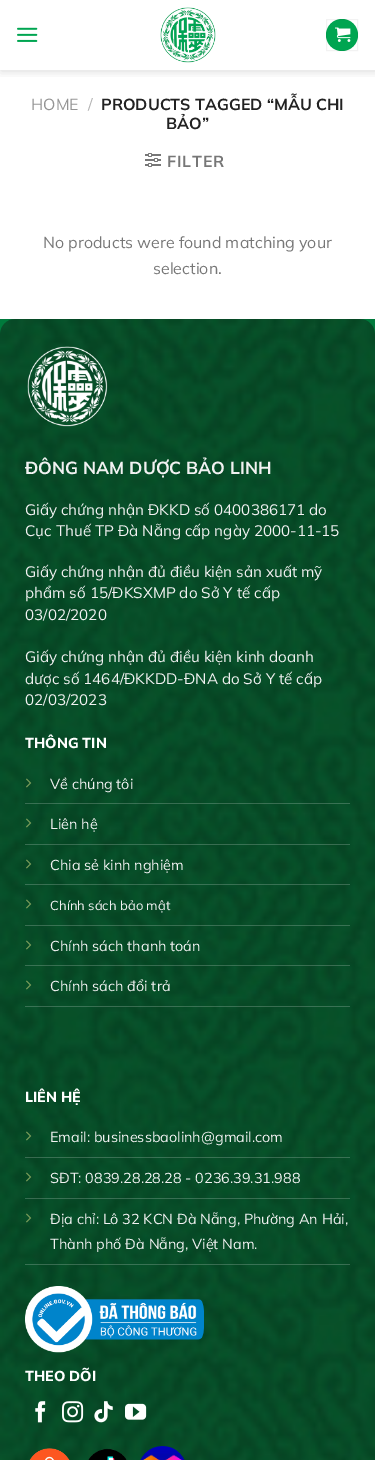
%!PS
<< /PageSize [375 1460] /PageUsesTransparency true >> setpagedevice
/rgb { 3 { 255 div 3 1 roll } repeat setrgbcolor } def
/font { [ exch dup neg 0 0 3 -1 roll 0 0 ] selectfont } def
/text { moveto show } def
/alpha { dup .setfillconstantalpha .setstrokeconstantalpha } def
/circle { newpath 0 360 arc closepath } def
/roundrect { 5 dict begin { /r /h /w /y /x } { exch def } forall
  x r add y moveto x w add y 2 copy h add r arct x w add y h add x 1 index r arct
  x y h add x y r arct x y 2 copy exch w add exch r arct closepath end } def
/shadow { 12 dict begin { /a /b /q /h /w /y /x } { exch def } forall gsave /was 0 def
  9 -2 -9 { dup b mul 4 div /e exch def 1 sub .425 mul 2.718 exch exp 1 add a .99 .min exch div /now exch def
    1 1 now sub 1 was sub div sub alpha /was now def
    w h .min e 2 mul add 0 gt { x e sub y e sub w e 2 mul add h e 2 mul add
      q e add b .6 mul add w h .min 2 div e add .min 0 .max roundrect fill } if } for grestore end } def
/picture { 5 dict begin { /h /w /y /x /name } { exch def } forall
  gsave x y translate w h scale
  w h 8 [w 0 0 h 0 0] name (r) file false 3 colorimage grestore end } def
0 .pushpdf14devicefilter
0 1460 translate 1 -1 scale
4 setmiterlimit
255 255 255 rgb
0 0 375 1460 rectfill
gsave
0 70 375 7 rectclip
0 0 0 rgb
1 1 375 70 0 5 0.15 shadow
grestore
(img_01.rgb) 17 27 21 15 picture
(img_02.rgb) 160 7 56 56 picture
0 165 81 rgb
342 35 16 circle fill
0.05 alpha
0 0 0 rgb
326.5 19.5 31 31 rectstroke
1 alpha
(img_03.rgb) 335 27 16 15 picture
(img_04.rgb) 145 153 16 14 picture
0 122 60 rgb
0 319 375 15 rectfill
(img_05.rgb) 0 319 375 1141 picture
(img_06.rgb) 27 346 81 81 picture
0.2 alpha
255 255 255 rgb
25 803 325 1 rectfill
1 alpha
(img_07.rgb) 26 778 6 10 picture
0.2 alpha
25 844 325 1 rectfill
1 alpha
(img_08.rgb) 26 818 6 10 picture
0.2 alpha
25 884 325 1 rectfill
1 alpha
(img_09.rgb) 26 859 6 10 picture
0.2 alpha
25 925 325 1 rectfill
1 alpha
(img_10.rgb) 26 899 6 10 picture
0.2 alpha
25 965 325 1 rectfill
1 alpha
(img_11.rgb) 26 940 6 10 picture
0.2 alpha
25 1006 325 1 rectfill
1 alpha
(img_12.rgb) 26 980 6 10 picture
0.2 alpha
25 1157 325 1 rectfill
1 alpha
(img_13.rgb) 26 1131 6 10 picture
0.2 alpha
25 1198 325 1 rectfill
1 alpha
(img_14.rgb) 26 1172 6 10 picture
0.2 alpha
25 1264 325 1 rectfill
1 alpha
(img_15.rgb) 26 1213 6 10 picture
(img_16.rgb) 25 1286 179 67 picture
(img_17.rgb) 35 1401 11 22 picture
(img_18.rgb) 62 1401 22 22 picture
(img_19.rgb) 94 1401 19 22 picture
(img_20.rgb) 125 1403 22 17 picture
(img_21.rgb) 29 1448 41 12 picture
(img_22.rgb) 88 1448 39 12 picture
(img_23.rgb) 140 1446 45 14 picture
/Mulish-Regular 16 font
148 148 148 rgb
(HOME) 31 110 text
178 178 178 rgb
(/) 88 110 text
/Mulish-Bold 16 font
34 34 34 rgb
(PRODUCTS TAGGED “MẪU CHI) 101 110 text
(BẢO”) 166 129 text
119 119 119 rgb
167 167 moveto 0.75 0 (FILTER) ashow
/Mulish-Regular 16 font
(No products were found matching your) 43 248 text
(selection.) 153 274 text
/Mulish-Bold 17.5 font
241 241 241 rgb
(ĐÔNG NAM DƯỢC BẢO LINH) 25 474 text
/Mulish-Regular 15.2 font
(Giấy chứng nhận ĐKKD số 0400386171 do) 25 515 text
(Cục Thuế TP Đà Nẵng cấp ngày 2000-11-15) 25 536 text
(Giấy chứng nhận đủ điều kiện sản xuất mỹ) 25 577 text
(phẩm số 15/ĐKSXMP do Sở Y tế cấp) 25 598 text
(03/02/2020) 25 620 text
(Giấy chứng nhận đủ điều kiện kinh doanh) 25 662 text
(dược số 1464/ĐKKDD-ĐNA do Sở Y tế cấp) 25 684 text
(02/03/2023) 25 705 text
/Mulish-ExtraBold 14.4 font
255 255 255 rgb
(THÔNG TIN) 25 748 text
/Mulish-Regular 14.4 font
241 241 241 rgb
(Về chúng tôi) 50 789 text
(Liên hệ) 50 829 text
(Chia sẻ kinh nghiệm) 50 870 text
/Mulish-Regular 13 font
(Chính sách bảo mật) 50 910 text
/Mulish-Regular 14.4 font
(Chính sách thanh toán) 50 951 text
(Chính sách đổi trả) 50 991 text
/Mulish-ExtraBold 14.4 font
255 255 255 rgb
(LIÊN HỆ) 25 1102 text
/Mulish-Regular 14.4 font
241 241 241 rgb
(Email: businessbaolinh@gmail.com) 50 1142 text
(SĐT: 0839.28.28.28 - 0236.39.31.988) 50 1183 text
(Địa chỉ: Lô 32 KCN Đà Nẵng, Phường An Hải,) 50 1224 text
(Thành phố Đà Nẵng, Việt Nam.) 50 1249 text
/Mulish-ExtraBold 14.4 font
255 255 255 rgb
(THEO DÕI) 25 1381 text
.poppdf14devicefilter showpage
